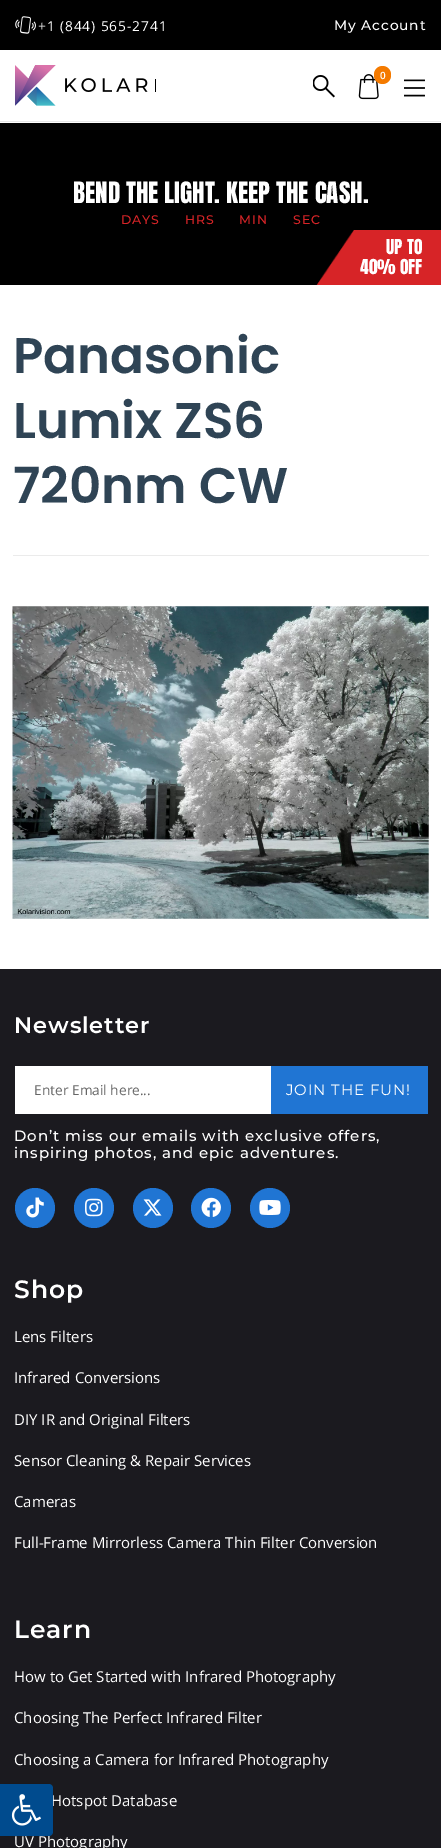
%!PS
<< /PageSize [441 1848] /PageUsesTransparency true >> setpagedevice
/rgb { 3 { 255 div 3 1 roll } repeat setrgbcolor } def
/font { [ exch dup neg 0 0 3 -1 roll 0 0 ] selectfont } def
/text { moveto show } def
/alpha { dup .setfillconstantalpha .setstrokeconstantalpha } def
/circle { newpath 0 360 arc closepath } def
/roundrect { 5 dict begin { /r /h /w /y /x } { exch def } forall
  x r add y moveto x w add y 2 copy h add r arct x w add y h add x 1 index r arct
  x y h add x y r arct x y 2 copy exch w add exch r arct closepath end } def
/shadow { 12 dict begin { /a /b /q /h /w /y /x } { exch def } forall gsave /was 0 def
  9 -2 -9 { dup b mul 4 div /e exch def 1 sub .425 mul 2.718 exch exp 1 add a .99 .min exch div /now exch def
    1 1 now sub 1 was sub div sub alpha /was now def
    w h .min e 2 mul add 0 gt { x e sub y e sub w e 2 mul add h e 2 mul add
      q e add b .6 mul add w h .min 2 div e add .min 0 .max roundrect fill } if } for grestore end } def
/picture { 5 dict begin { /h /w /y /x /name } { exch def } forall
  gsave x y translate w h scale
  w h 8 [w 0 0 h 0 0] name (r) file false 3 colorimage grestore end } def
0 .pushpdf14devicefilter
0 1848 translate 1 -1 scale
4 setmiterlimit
255 255 255 rgb
0 0 441 1848 rectfill
0 0 0 rgb
0 0 441 50 rectfill
(img_01.rgb) 15 16 21 18 picture
231 231 231 rgb
0 121 441 1 rectfill
(img_02.rgb) 15 65 141 41 picture
(img_03.rgb) 313 75 22 23 picture
(img_04.rgb) 358 74 21 26 picture
244 122 0 rgb
374 66 17 18 8.5 roundrect fill
(img_05.rgb) 404 79 21 18 picture
0 0 0 rgb
0 123 441 162 rectfill
(img_06.rgb) 316 230 125 55 picture
235 235 235 rgb
13 555 416 1 rectfill
(img_07.rgb) 12 606 417 313 picture
27 26 31 rgb
0 969 441 879 rectfill
255 255 255 rgb
15 1066 256 48 rectfill
32 117 211 rgb
271 1066 157 48 rectfill
35 1208 20 circle fill
(img_08.rgb) 26 1197 18 21 picture
94 1208 20 circle fill
(img_09.rgb) 85 1198 18 19 picture
153 1208 20 circle fill
(img_10.rgb) 143 1199 19 17 picture
211 1208 20 circle fill
(img_11.rgb) 201 1197 20 20 picture
270 1208 20 circle fill
(img_12.rgb) 259 1200 22 15 picture
0 0 0 rgb
0 1784 53 52 4 6 0.1 shadow
/OpenSans-Regular 13.75 font
255 255 255 rgb
38 31 moveto 0.9 0 (+1 \(844\) 565-2741) ashow
/Montserrat-Medium 13.75 font
334 30 moveto 0.9 0 (My Account) ashow
/OpenSans-SemiBold 10 font
(0) 380 79 text
/Anton-Regular 25 font
(BEND THE LIGHT. KEEP THE CASH.) 73 203 text
/Montserrat-Medium 12.5 font
215 36 39 rgb
121 224 moveto 0.9 0 (DAYS) ashow
185 224 moveto 0.9 0 (HRS) ashow
239 224 moveto 0.9 0 (MIN) ashow
293 224 moveto 0.9 0 (SEC) ashow
/Anton-Regular 17.5 font
255 255 255 rgb
(UP TO) 386 254 text
(40% OFF) 360 274 text
/Poppins-SemiBold 50 font
47 68 85 rgb
(Panasonic) 13 373 text
(Lumix ZS6) 13 438 text
(720nm CW) 13 503 text
/Montserrat-SemiBold 22.5 font
255 255 255 rgb
14 1033 moveto 0.9 0 (Newsletter) ashow
/OpenSans-Regular 13.75 font
102 102 102 rgb
(Enter Email here...) 34 1095 text
/Montserrat-Regular 15 font
255 255 255 rgb
286 1095 moveto 0.9 0 (JOIN THE FUN!) ashow
/Montserrat-Medium 15 font
14 1141 moveto 0.9 0 (Don’t miss our emails with exclusive offers,) ashow
14 1158 moveto 0.9 0 (inspiring photos, and epic adventures.) ashow
/Montserrat-SemiBold 25 font
14 1298 moveto 0.9 0 (Shop) ashow
/OpenSans-Regular 15 font
(Lens Filters) 14 1342 text
(Infrared Conversions) 14 1383 text
(DIY IR and Original Filters) 14 1425 text
(Sensor Cleaning & Repair Services) 14 1466 text
(Cameras) 14 1507 text
(Full-Frame Mirrorless Camera Thin Filter Conversion) 14 1548 text
/Montserrat-SemiBold 25 font
14 1638 moveto 0.9 0 (Learn) ashow
/OpenSans-Regular 15 font
(How to Get Started with Infrared Photography) 14 1682 text
(Choosing The Perfect Infrared Filter) 14 1723 text
(Choosing a Camera for Infrared Photography) 14 1765 text
(Hotspot Database) 51 1806 text
(UV Photography) 14 1847 text
0 75 142 rgb
0 1784 moveto 49 0 rlineto 2 0 4 2 4 4 rcurveto 0 44 rlineto 0 2 -2 4 -4 4 rcurveto -49 0 rlineto closepath fill
(img_13.rgb) 11 1794 30 32 picture
.poppdf14devicefilter showpage
